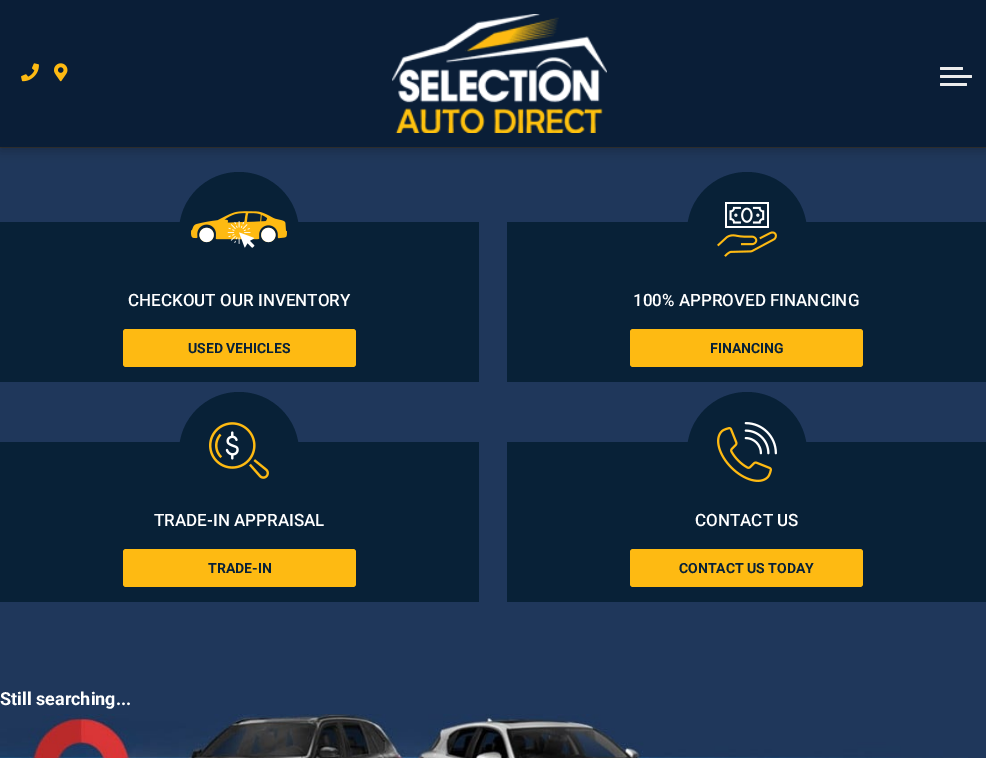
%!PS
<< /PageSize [986 758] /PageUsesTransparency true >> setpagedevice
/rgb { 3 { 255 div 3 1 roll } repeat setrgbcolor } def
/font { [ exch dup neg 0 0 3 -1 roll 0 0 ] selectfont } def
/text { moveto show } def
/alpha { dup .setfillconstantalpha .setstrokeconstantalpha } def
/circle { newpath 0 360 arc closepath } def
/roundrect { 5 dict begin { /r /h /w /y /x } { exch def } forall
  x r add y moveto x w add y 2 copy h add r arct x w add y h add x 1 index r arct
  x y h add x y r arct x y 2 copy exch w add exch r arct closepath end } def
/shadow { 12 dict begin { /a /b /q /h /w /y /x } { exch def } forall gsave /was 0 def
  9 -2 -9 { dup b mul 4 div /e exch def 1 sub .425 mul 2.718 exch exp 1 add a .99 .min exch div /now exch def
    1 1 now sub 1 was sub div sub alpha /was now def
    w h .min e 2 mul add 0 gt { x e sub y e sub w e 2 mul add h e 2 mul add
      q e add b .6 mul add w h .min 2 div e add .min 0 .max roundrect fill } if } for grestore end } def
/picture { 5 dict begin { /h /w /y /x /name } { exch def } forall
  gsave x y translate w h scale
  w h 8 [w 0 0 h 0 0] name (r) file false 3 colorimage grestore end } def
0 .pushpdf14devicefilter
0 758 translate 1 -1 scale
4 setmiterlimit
31 55 91 rgb
0 0 986 758 rectfill
51 51 51 rgb
0 147 986 1 rectfill
0 0 0 rgb
0 4 986 147 0 5.5 0.2 shadow
10 30 55 rgb
0 0 986 147 rectfill
(img_01.rgb) 21 63 18 19 picture
(img_02.rgb) 54 63 14 19 picture
(img_03.rgb) 392 14 215 119 picture
236 236 236 rgb
940 75 32 3 1 roundrect fill
940 67 23 3 1 roundrect fill
940 83 27 3 1 roundrect fill
8 33 55 rgb
0 222 479 160 rectfill
239 232 60 circle fill
(img_04.rgb) 191 211 96 37 picture
254 186 18 rgb
123 329 233 38 3 roundrect fill
8 33 55 rgb
507 222 479 160 rectfill
747 232 60 circle fill
(img_05.rgb) 717 202 60 55 picture
254 186 18 rgb
630 329 233 38 3 roundrect fill
8 33 55 rgb
0 442 479 160 rectfill
239 452 60 circle fill
(img_06.rgb) 209 422 60 57 picture
254 186 18 rgb
123 549 233 38 3 roundrect fill
8 33 55 rgb
507 442 479 160 rectfill
747 452 60 circle fill
(img_07.rgb) 717 422 60 60 picture
254 186 18 rgb
630 549 233 38 3 roundrect fill
(img_08.rgb) 0 714 968 44 picture
/Roboto-Medium 17 font
255 255 255 rgb
(CHECKOUT OUR INVENTORY) 128 306 text
/Roboto-Bold 14 font
8 33 55 rgb
(USED VEHICLES) 188 353 text
/Roboto-Medium 17 font
255 255 255 rgb
(100% APPROVED FINANCING) 633 306 text
/Roboto-Bold 14 font
8 33 55 rgb
(FINANCING) 710 353 text
/Roboto-Medium 17 font
255 255 255 rgb
(TRADE-IN APPRAISAL) 154 526 text
/Roboto-Bold 14 font
8 33 55 rgb
(TRADE-IN) 208 573 text
/Roboto-Medium 17 font
255 255 255 rgb
(CONTACT US) 695 526 text
/Roboto-Bold 14 font
8 33 55 rgb
(CONTACT US TODAY) 679 573 text
/Roboto-Bold 18 font
255 255 255 rgb
(Still searching...) 0 705 text
.poppdf14devicefilter showpage
